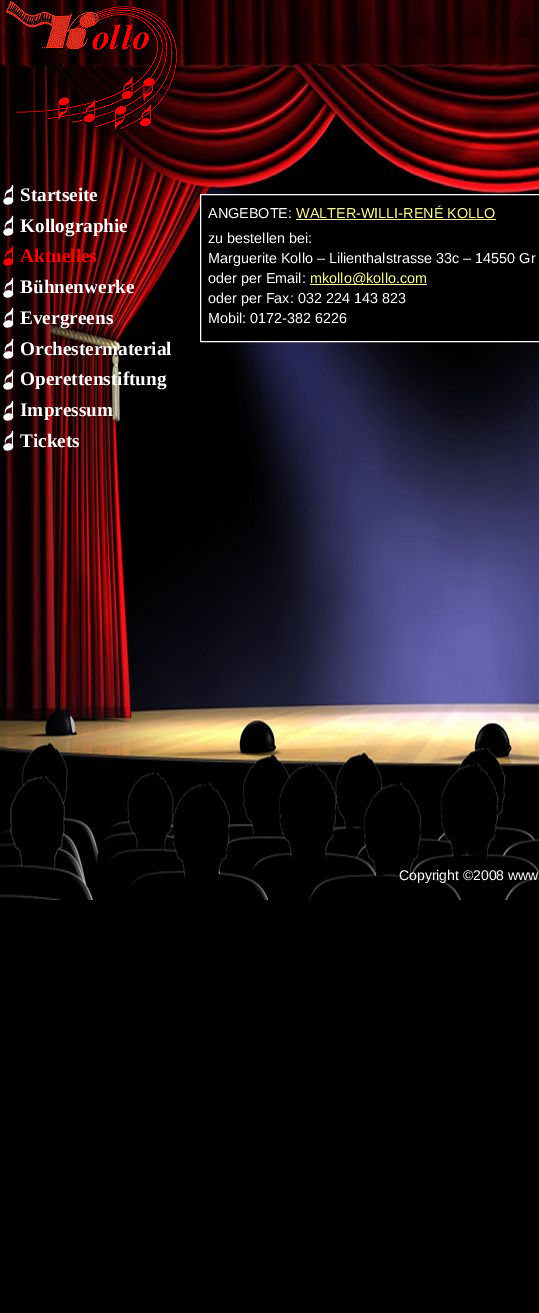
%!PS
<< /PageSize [539 1313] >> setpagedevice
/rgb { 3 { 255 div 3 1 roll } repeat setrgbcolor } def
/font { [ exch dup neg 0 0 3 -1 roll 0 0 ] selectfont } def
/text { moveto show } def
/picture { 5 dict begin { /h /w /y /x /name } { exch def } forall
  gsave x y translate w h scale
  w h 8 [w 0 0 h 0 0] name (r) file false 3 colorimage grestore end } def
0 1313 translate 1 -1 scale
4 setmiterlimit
0 0 0 rgb
0 0 539 1313 rectfill
(img_01.rgb) 0 0 539 900 picture
(img_02.rgb) 5 0 174 130 picture
(img_03.rgb) 3 184 11 21 picture
(img_04.rgb) 3 215 11 21 picture
(img_05.rgb) 3 245 11 21 picture
(img_06.rgb) 3 277 11 21 picture
(img_07.rgb) 3 307 11 21 picture
(img_08.rgb) 3 338 11 21 picture
(img_09.rgb) 3 369 11 21 picture
(img_10.rgb) 3 400 11 21 picture
(img_11.rgb) 3 430 11 21 picture
200.5 194.5 moveto 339 0 rlineto 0 147 rlineto -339 0 rlineto closepath gsave fill grestore
255 255 255 rgb
stroke
255 255 153 rgb
296 219 200 1 rectfill
310 284 117 1 rectfill
/LiberationSerif-Bold 19.25 font
255 255 255 rgb
(Startseite) 20 201 text
(Kollographie) 20 232 text
255 0 0 rgb
(Aktuelles) 20 262 text
255 255 255 rgb
(Bühnenwerke) 20 293 text
(Evergreens) 20 324 text
(Orchestermaterial) 20 355 text
(Operettenstiftung) 20 385 text
(Impressum) 20 416 text
(Tickets) 20 447 text
/LiberationSans-Regular 14.4 font
(ANGEBOTE:) 208 218 text
255 255 153 rgb
(WALTER-WILLI-RENÉ KOLLO) 296 218 text
255 255 255 rgb
(zu bestellen bei:) 208 243 text
(Marguerite Kollo – Lilienthalstrasse 33c – 14550 Gr) 208 263 text
(oder per Email:) 208 283 text
255 255 153 rgb
(mkollo@kollo.com) 310 283 text
255 255 255 rgb
(oder per Fax: 032 224 143 823) 208 303 text
(Mobil: 0172-382 6226) 208 323 text
/LiberationSans-Regular 14 font
(Copyright ©2008 www) 399 880 text
showpage
